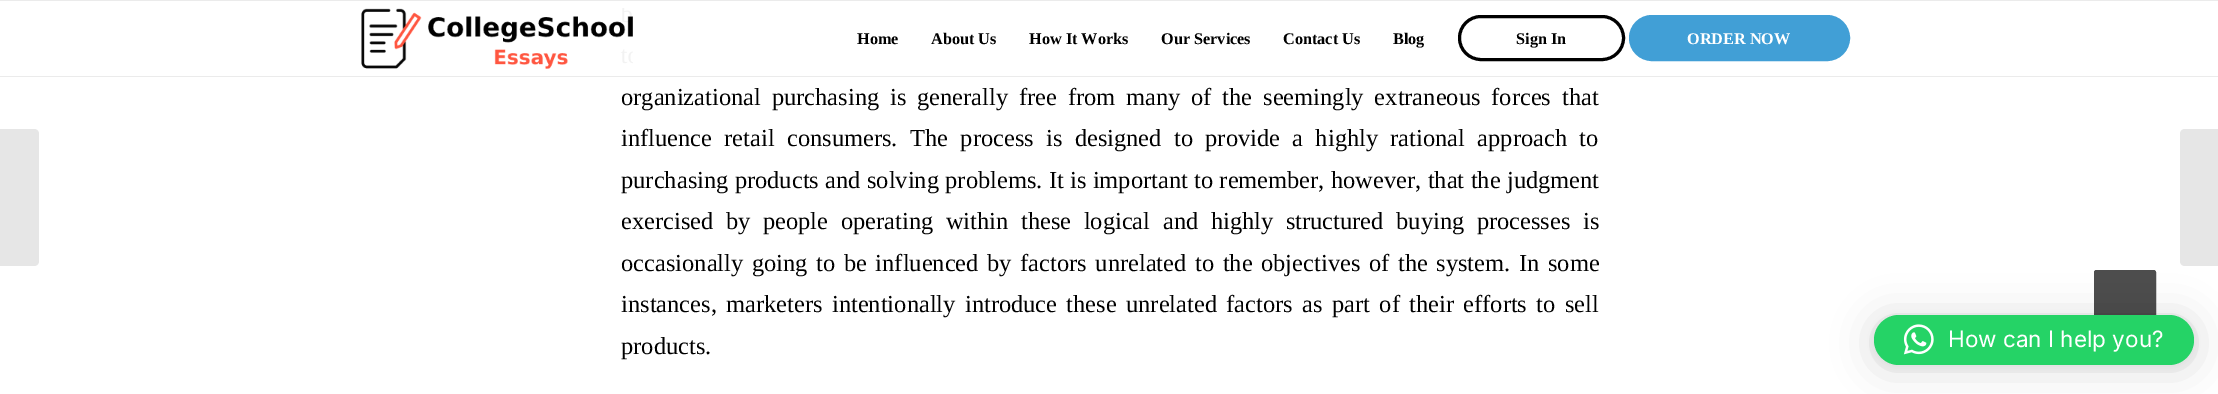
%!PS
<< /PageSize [2218 394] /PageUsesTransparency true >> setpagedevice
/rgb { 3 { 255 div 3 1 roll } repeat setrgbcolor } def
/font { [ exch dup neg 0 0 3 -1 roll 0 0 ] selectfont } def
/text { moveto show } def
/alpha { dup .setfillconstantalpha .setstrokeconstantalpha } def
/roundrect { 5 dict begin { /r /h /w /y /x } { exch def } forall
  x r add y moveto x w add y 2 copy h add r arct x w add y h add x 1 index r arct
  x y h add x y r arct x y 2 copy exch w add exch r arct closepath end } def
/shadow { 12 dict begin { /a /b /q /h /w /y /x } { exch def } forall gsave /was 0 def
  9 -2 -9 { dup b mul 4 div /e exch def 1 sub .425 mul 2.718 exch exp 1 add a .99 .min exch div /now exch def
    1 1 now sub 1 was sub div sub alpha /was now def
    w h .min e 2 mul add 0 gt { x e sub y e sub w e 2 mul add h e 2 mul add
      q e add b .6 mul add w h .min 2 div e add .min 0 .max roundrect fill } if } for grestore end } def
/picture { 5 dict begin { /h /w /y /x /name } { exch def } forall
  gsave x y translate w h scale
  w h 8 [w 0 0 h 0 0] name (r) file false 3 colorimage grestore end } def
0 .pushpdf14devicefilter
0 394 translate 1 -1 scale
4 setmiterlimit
255 255 255 rgb
0 0 2218 394 rectfill
230 230 230 rgb
0 129 moveto 34 0 rlineto 3 0 5 2 5 5 rcurveto 0 127 rlineto 0 3 -2 5 -5 5 rcurveto -34 0 rlineto closepath fill
235 235 235 rgb
0 0 2218 1 rectfill
0 76 2218 1 rectfill
(img_01.rgb) 361 8 272 61 picture
0 0 0 rgb
3 setlinewidth
1459.5 16.5 164 43 21.5 roundrect stroke
65 159 214 rgb
1630.5 16.5 218 43 21.5 roundrect gsave fill grestore
stroke
230 230 230 rgb
2185 129 moveto 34 0 rlineto 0 137 rlineto -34 0 rlineto -3 0 -5 -2 -5 -5 rcurveto 0 -127 rlineto 0 -3 2 -5 5 -5 rcurveto closepath fill
77 77 77 rgb
2094.5 270.5 61 62 2 roundrect gsave fill grestore
1 setlinewidth
stroke
0 0 0 rgb
1874 318 320 50 25 20 0.16 shadow
1874 316 320 50 25 4 0.06 shadow
37 211 102 rgb
1874 315 320 50 25 roundrect fill
(img_02.rgb) 1903 324 31 31 picture
/LiberationSerif-Bold 16.25 font
0 0 0 rgb
(Home) 857 44 text
(About Us) 931 44 text
(How It Works) 1029 44 text
(Our Services) 1161 44 text
(Contact Us) 1283 44 text
(Blog) 1393 44 text
(Sign In) 1516 44 text
255 255 255 rgb
(ORDER NOW) 1687 44 text
/LiberationSerif-Regular 24.45 font
0 0 0 rgb
621 105 moveto 4.75 0 32 (organizational purchasing is generally free from many of the seemingly extraneous forces that) widthshow
621 146 moveto 6.25 0 32 (influence retail consumers. The process is designed to provide a highly rational approach to) widthshow
621 188 moveto 0.25 0 32 (purchasing products and solving problems. It is important to remember, however, that the judgment) widthshow
621 229 moveto 6.5 0 32 (exercised by people operating within these logical and highly structured buying processes is) widthshow
621 271 moveto 2.5 0 32 (occasionally going to be influenced by factors unrelated to the objectives of the system. In some) widthshow
621 312 moveto 3.25 0 32 (instances, marketers intentionally introduce these unrelated factors as part of their efforts to sell) widthshow
(products.) 621 354 text
/Inter-Regular 22.5 font
255 255 255 rgb
(How can I help you?) 1948 347 text
.poppdf14devicefilter showpage
